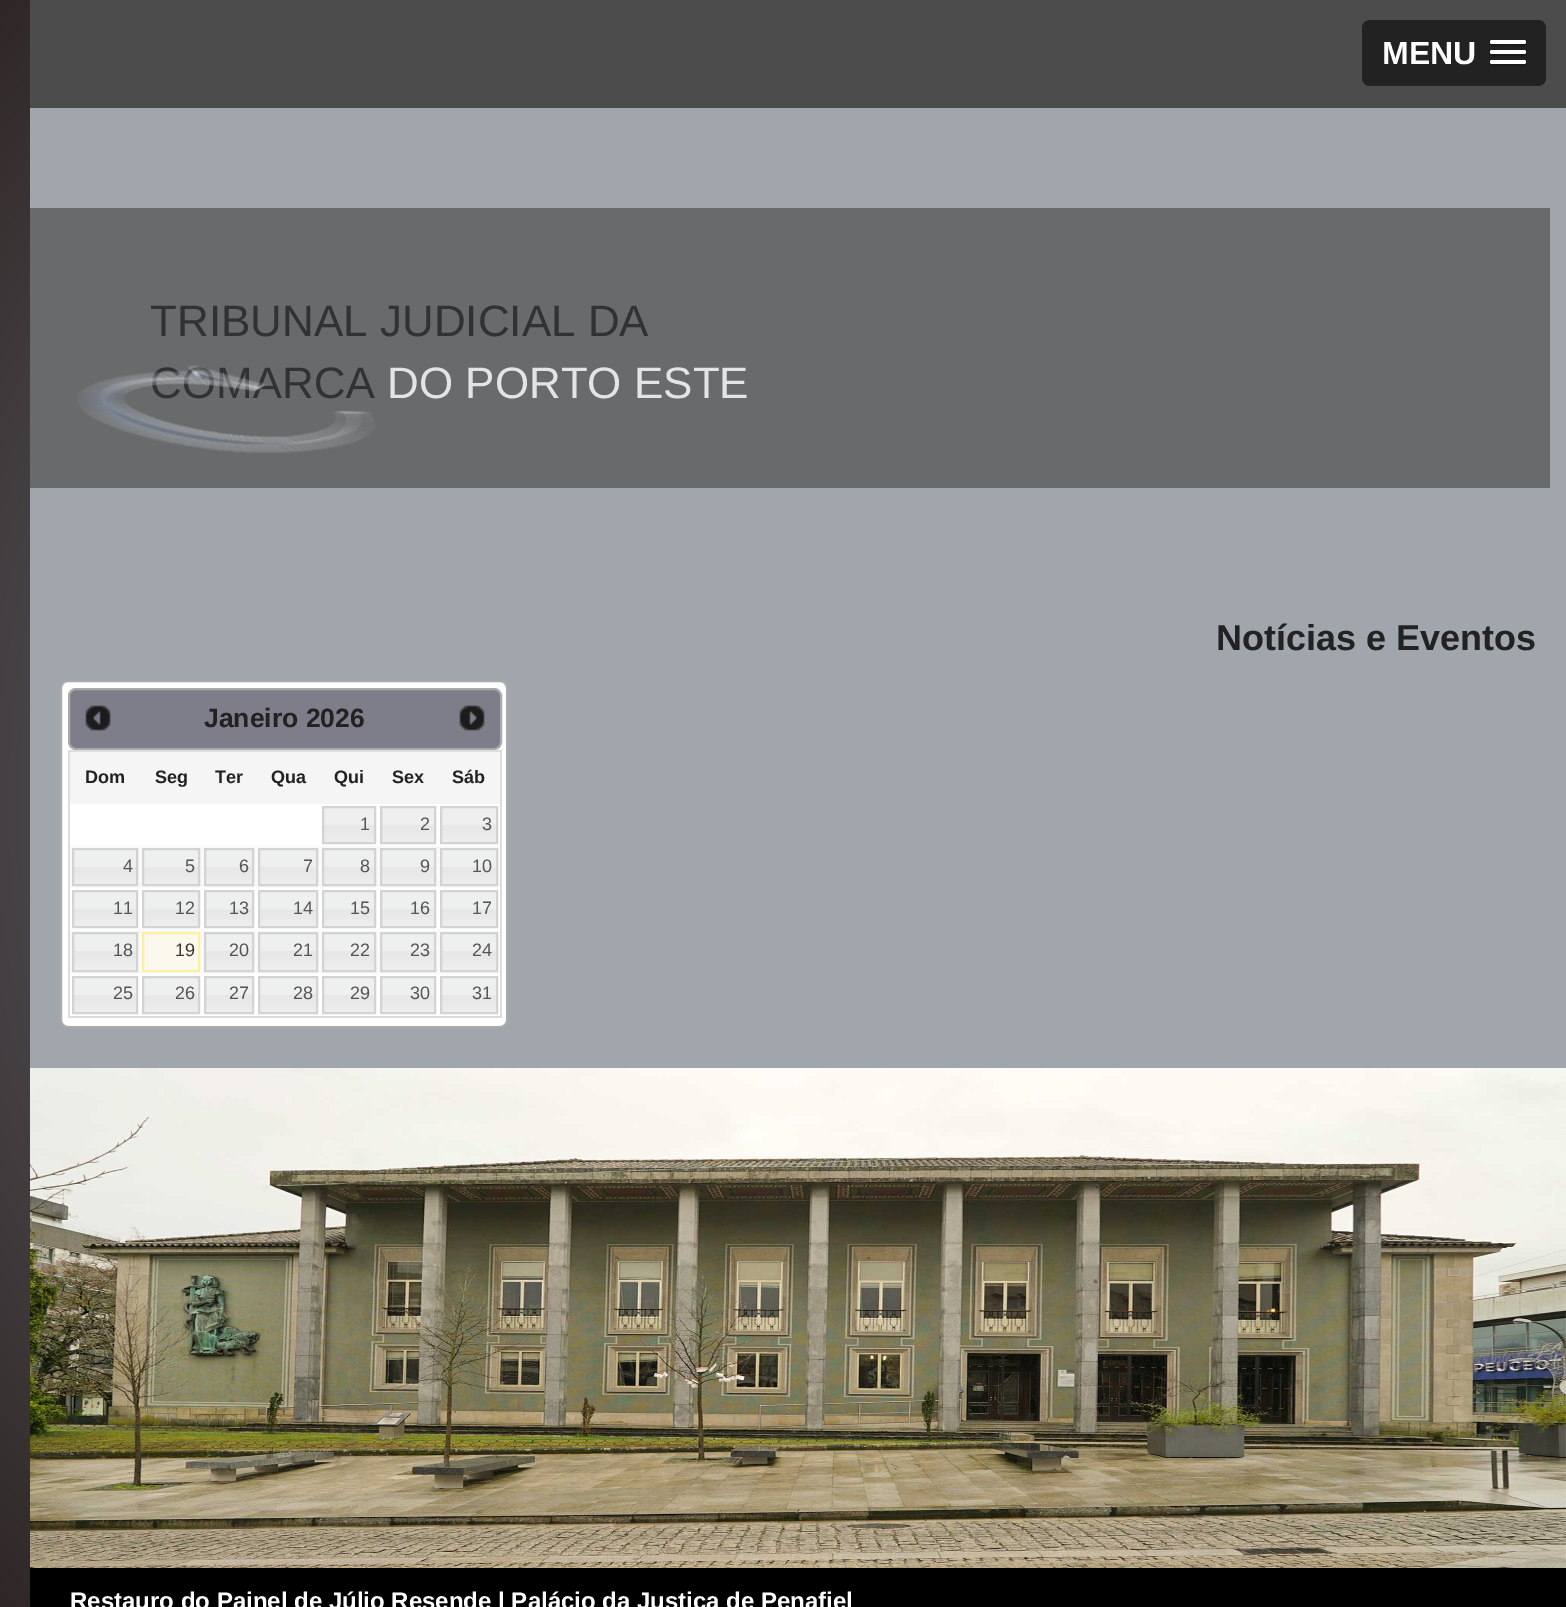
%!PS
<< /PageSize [1566 1607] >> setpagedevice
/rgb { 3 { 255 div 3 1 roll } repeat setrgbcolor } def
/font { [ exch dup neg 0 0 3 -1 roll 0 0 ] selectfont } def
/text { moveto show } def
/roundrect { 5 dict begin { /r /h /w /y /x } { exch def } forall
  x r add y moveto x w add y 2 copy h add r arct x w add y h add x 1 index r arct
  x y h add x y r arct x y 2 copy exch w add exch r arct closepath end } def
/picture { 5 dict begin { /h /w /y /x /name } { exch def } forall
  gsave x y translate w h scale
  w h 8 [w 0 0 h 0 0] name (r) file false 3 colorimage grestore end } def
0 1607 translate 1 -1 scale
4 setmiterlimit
255 255 255 rgb
0 0 1566 1607 rectfill
gsave 0 0 moveto 30 0 rlineto 0 1607 rlineto -30 0 rlineto closepath clip newpath 783 804 translate 1107 1137 scale
<< /ShadingType 3 /ColorSpace /DeviceRGB /Coords [0 0 0 0 0 1] /Extend [true true] /Function << /FunctionType 2 /Domain [0 1] /C0 [0.49 0.494 0.537] /C1 [0.184 0.153 0.153] /N 1 >> >> shfill grestore
76 76 76 rgb
30 0 1536 108 rectfill
34 34 34 rgb
1362 20 184 66 8 roundrect fill
26 26 26 rgb
1490.5 43 moveto -2.5 4 6.5 3 7 3 rcurveto 21 0 rlineto 0.5 0 9.5 1 7 -3 rcurveto 0 0.5 -1 1 -1.5 1 rcurveto -32 0 rlineto -0.5 0 -1.5 -0.5 -1.5 -1 rcurveto closepath fill
255 255 255 rgb
1490 40 36 4 2 roundrect fill
26 26 26 rgb
1490.5 53 moveto -2.5 4 6.5 3 7 3 rcurveto 21 0 rlineto 0.5 0 9.5 1 7 -3 rcurveto 0 0.5 -1 1 -1.5 1 rcurveto -32 0 rlineto -0.5 0 -1.5 -0.5 -1.5 -1 rcurveto closepath fill
255 255 255 rgb
1490 50 36 4 2 roundrect fill
26 26 26 rgb
1490.5 63 moveto -2.5 4 6.5 3 7 3 rcurveto 21 0 rlineto 0.5 0 9.5 1 7 -3 rcurveto 0 0.5 -1 1 -1.5 1 rcurveto -32 0 rlineto -0.5 0 -1.5 -0.5 -1.5 -1 rcurveto closepath fill
255 255 255 rgb
1490 60 36 4 2 roundrect fill
160 166 171 rgb
30 108 1536 960 rectfill
104 106 107 rgb
30 208 1520 280 rectfill
255 255 255 rgb
61 681 446 346 7 roundrect gsave fill grestore
170 170 170 rgb
2 setlinewidth
stroke
125 126 137 rgb
69 689 432 60 7 roundrect gsave fill grestore
170 170 170 rgb
stroke
(img_02.rgb) 85 705 26 26 picture
(img_03.rgb) 459 705 26 26 picture
221 221 221 rgb
68 750 434 2 rectfill
500 750 2 268 rectfill
68 1016 434 2 rectfill
68 750 2 268 rectfill
245 245 245 rgb
70 752 430 52 rectfill
(img_04.rgb) 324 808 50 34 picture
211 211 211 rgb
323 807 52 36 rectstroke
(img_05.rgb) 382 808 52 34 picture
381 807 54 36 rectstroke
(img_06.rgb) 442 808 54 34 picture
441 807 56 36 rectstroke
249 249 249 rgb
70 846 430 42 rectfill
(img_07.rgb) 74 850 62 34 picture
211 211 211 rgb
73 849 64 36 rectstroke
(img_06.rgb) 144 850 54 34 picture
143 849 56 36 rectstroke
(img_08.rgb) 206 850 46 34 picture
205 849 48 36 rectstroke
(img_09.rgb) 260 850 56 34 picture
259 849 58 36 rectstroke
(img_04.rgb) 324 850 50 34 picture
323 849 52 36 rectstroke
(img_05.rgb) 382 850 52 34 picture
381 849 54 36 rectstroke
(img_06.rgb) 442 850 54 34 picture
441 849 56 36 rectstroke
(img_07.rgb) 74 892 62 34 picture
73 891 64 36 rectstroke
(img_06.rgb) 144 892 54 34 picture
143 891 56 36 rectstroke
(img_08.rgb) 206 892 46 34 picture
205 891 48 36 rectstroke
(img_09.rgb) 260 892 56 34 picture
259 891 58 36 rectstroke
(img_04.rgb) 324 892 50 34 picture
323 891 52 36 rectstroke
(img_05.rgb) 382 892 52 34 picture
381 891 54 36 rectstroke
(img_06.rgb) 442 892 54 34 picture
441 891 56 36 rectstroke
249 249 249 rgb
70 930 430 44 rectfill
(img_10.rgb) 74 934 62 36 picture
211 211 211 rgb
73 933 64 38 rectstroke
251 249 238 rgb
143 933 moveto 56 0 rlineto 0 38 rlineto -56 0 rlineto closepath gsave fill grestore
252 239 161 rgb
stroke
(img_11.rgb) 206 934 46 36 picture
211 211 211 rgb
205 933 48 38 rectstroke
(img_12.rgb) 260 934 56 36 picture
259 933 58 38 rectstroke
(img_13.rgb) 324 934 50 36 picture
323 933 52 38 rectstroke
(img_14.rgb) 382 934 52 36 picture
381 933 54 38 rectstroke
(img_15.rgb) 442 934 54 36 picture
441 933 56 38 rectstroke
(img_07.rgb) 74 978 62 34 picture
73 977 64 36 rectstroke
(img_06.rgb) 144 978 54 34 picture
143 977 56 36 rectstroke
(img_08.rgb) 206 978 46 34 picture
205 977 48 36 rectstroke
(img_09.rgb) 260 978 56 34 picture
259 977 58 36 rectstroke
(img_04.rgb) 324 978 50 34 picture
323 977 52 36 rectstroke
(img_05.rgb) 382 978 52 34 picture
381 977 54 36 rectstroke
(img_06.rgb) 442 978 54 34 picture
441 977 56 36 rectstroke
0 0 0 rgb
30 1568 1536 39 rectfill
(img_16.rgb) 30 1068 1536 500 picture
/LiberationSans-Bold 32 font
255 255 255 rgb
(MENU) 1382 64 text
/LiberationSans-Regular 44 font
48 50 51 rgb
(TRIBUNAL JUDICIAL DA) 150 336 text
(COMARCA) 150 398 text
227 228 230 rgb
(DO PORTO ESTE) 387 398 text
(img_01.rgb) 77 365 298 89 picture
/LiberationSans-Bold 36 font
34 34 34 rgb
(Notícias e Eventos) 1216 650 text
/LiberationSans-Bold 26.5 font
(Janeiro 2026) 204 727 text
/LiberationSans-Bold 18 font
(Dom) 85 783 text
(Seg) 155 783 text
(Ter) 215 783 text
(Qua) 271 783 text
(Qui) 334 783 text
(Sex) 392 783 text
(Sáb) 452 783 text
/LiberationSans-Regular 18 font
85 85 85 rgb
(1) 360 830 text
(2) 420 830 text
(3) 482 830 text
(4) 123 872 text
(5) 185 872 text
(6) 239 872 text
(7) 303 872 text
(8) 360 872 text
(9) 420 872 text
(10) 472 872 text
(11) 113 914 text
(12) 175 914 text
(13) 229 914 text
(14) 293 914 text
(15) 350 914 text
(16) 410 914 text
(17) 472 914 text
(18) 113 956 text
54 54 54 rgb
(19) 175 956 text
85 85 85 rgb
(20) 229 956 text
(21) 293 956 text
(22) 350 956 text
(23) 410 956 text
(24) 472 956 text
(25) 113 999 text
(26) 175 999 text
(27) 229 999 text
(28) 293 999 text
(29) 350 999 text
(30) 410 999 text
(31) 472 999 text
/LiberationSans-Bold 24 font
255 255 255 rgb
(Restauro do Painel de Júlio Resende | Palácio da Justiça de Penafiel) 70 1609 text
showpage
